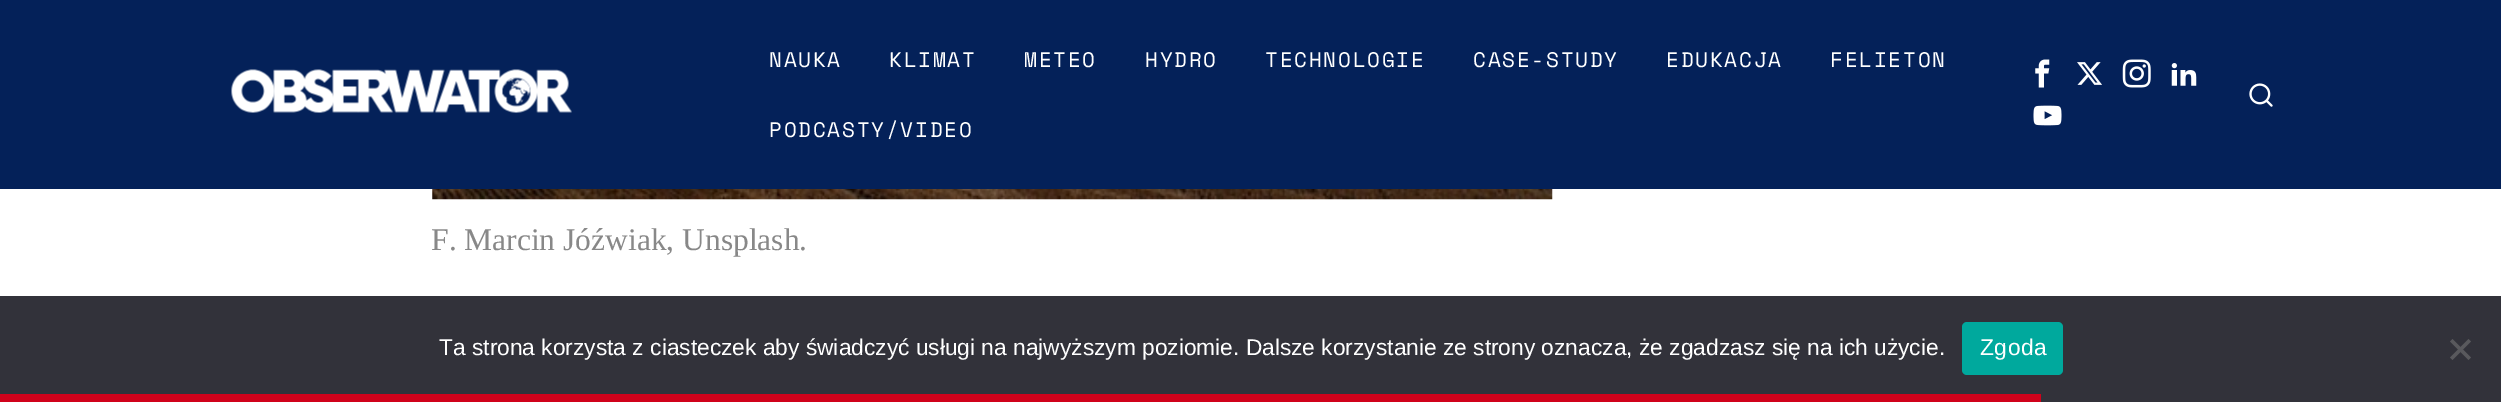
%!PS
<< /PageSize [2501 402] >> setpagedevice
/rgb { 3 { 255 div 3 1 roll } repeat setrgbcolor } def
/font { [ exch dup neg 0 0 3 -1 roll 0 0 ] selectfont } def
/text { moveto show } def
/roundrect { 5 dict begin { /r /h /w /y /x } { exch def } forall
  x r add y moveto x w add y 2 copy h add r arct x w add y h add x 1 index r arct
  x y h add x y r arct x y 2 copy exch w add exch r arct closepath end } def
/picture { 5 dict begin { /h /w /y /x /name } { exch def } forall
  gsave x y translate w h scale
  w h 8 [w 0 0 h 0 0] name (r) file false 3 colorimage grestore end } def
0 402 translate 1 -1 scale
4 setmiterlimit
255 255 255 rgb
0 0 2501 402 rectfill
4 33 89 rgb
0 0 2501 189 rectfill
(img_01.rgb) 231 69 341 44 picture
(img_02.rgb) 2035 59 15 29 picture
(img_03.rgb) 2077 62 25 23 picture
(img_04.rgb) 2122 59 29 29 picture
(img_05.rgb) 2171 63 26 23 picture
(img_06.rgb) 2033 105 29 21 picture
(img_07.rgb) 2249 83 24 24 picture
(img_08.rgb) 432 189 1121 11 picture
50 50 58 rgb
0 296 2501 106 rectfill
0 169 157 rgb
1962 322 101 53 5 roundrect fill
89 89 93 rgb
2468.5 339 moveto 2.5 2.5 rlineto -18.5 18.5 rlineto -2.5 -2.5 rlineto closepath fill
2450 341.5 moveto 2.5 -2.5 rlineto 18.5 18.5 rlineto -2.5 2.5 rlineto closepath fill
208 2 27 rgb
0 394 2041 8 rectfill
/SpaceMono-Regular 21 font
255 255 255 rgb
769 67 moveto 1.75 0 (NAUKA) ashow
889 67 moveto 1.75 0 (KLIMAT) ashow
1024 67 moveto 1.75 0 (METEO) ashow
1145 67 moveto 1.75 0 (HYDRO) ashow
1265 67 moveto 1.75 0 (TECHNOLOGIE) ashow
1473 67 moveto 1.75 0 (CASE-STUDY) ashow
1666 67 moveto 1.75 0 (EDUKACJA) ashow
1830 67 moveto 1.75 0 (FELIETON) ashow
769 137 moveto 1.75 0 (PODCASTY/VIDEO) ashow
/Tinos-Regular 31.5 font
136 136 136 rgb
(F. Marcin Jóźwiak, Unsplash.) 431 250 text
/LiberationSans-Regular 22.75 font
255 255 255 rgb
(Ta strona korzysta z ciasteczek aby świadczyć usługi na najwyższym poziomie. Dalsze korzystanie ze strony oznacza, że zgadzasz się na ich użycie.) 439 355 text
1980 355 moveto 0.5 0 (Zgoda) ashow
showpage
